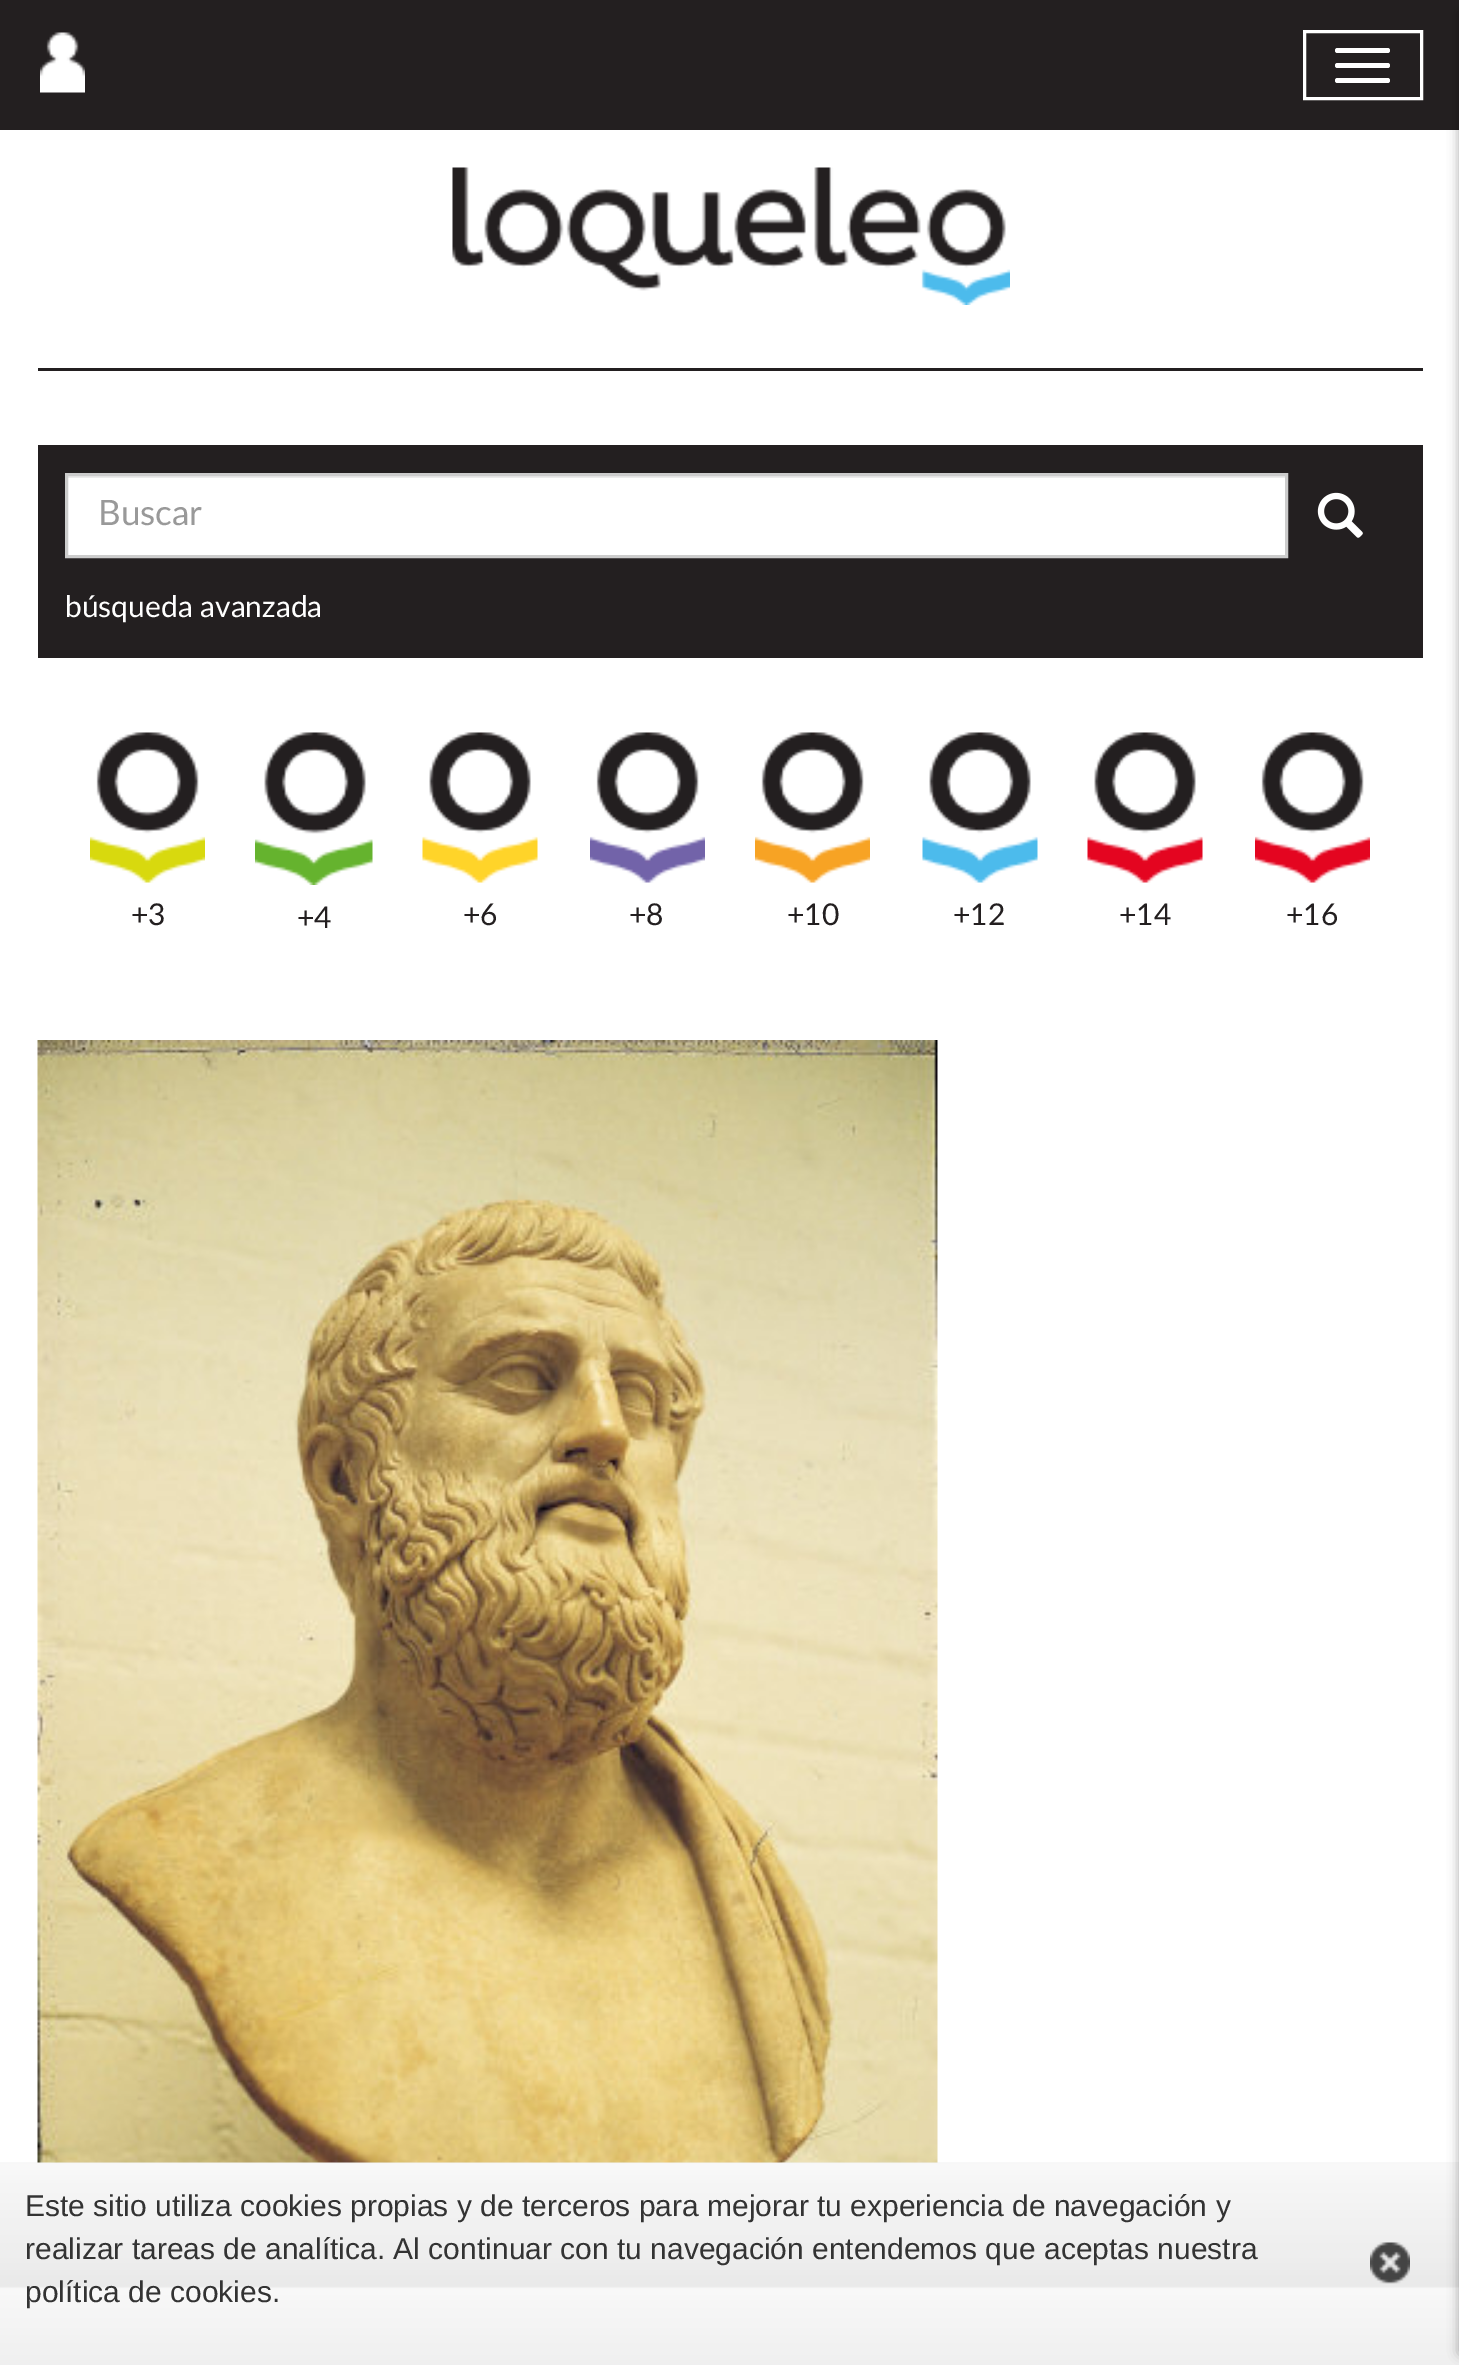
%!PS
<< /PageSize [1459 2365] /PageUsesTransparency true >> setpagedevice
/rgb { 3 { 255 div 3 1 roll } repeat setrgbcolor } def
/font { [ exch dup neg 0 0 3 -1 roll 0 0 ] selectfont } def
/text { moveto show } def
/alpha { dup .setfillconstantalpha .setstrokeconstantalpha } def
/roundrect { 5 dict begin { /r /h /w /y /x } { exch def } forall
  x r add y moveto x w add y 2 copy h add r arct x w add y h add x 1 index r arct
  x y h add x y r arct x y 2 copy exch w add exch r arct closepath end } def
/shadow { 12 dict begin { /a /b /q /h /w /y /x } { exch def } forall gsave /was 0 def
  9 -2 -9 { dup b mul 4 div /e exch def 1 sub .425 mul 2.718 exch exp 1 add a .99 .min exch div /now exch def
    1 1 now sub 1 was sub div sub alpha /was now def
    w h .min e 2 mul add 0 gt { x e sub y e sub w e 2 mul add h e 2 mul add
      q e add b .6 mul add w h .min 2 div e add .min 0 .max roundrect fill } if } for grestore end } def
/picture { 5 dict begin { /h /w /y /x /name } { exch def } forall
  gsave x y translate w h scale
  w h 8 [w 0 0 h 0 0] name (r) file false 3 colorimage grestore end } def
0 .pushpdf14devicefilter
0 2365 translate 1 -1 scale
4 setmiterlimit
255 255 255 rgb
0 0 1459 2365 rectfill
35 31 32 rgb
0 0 1459 130 rectfill
(img_01.rgb) 40 32 45 61 picture
255 255 255 rgb
3 setlinewidth
1304.5 31.5 117 67 rectstroke
1335 48 55 5 2.5 roundrect fill
1335 63 55 5 2.5 roundrect fill
1335 78 55 5 2.5 roundrect fill
(img_12.rgb) 37 1040 901 1123 picture
(img_13.rgb) 0 2162 1459 203 picture
0 0 0 rgb
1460 13 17 2340 0 6 0.4 shadow
35 31 32 rgb
38 368 1385 3 rectfill
(img_02.rgb) 452 167 558 138 picture
38 445 1385 213 rectfill
255 255 255 rgb
68 478 1217 77 rectfill
236 236 236 rgb
68 476 1217 2 rectfill
204 204 204 rgb
66.5 474.5 1220 82 rectstroke
(img_03.rgb) 1317 492 46 46 picture
(img_04.rgb) 90 732 115 151 picture
(img_05.rgb) 255 732 118 153 picture
(img_06.rgb) 422 732 116 151 picture
(img_07.rgb) 590 732 115 151 picture
(img_08.rgb) 755 732 115 151 picture
(img_09.rgb) 922 732 116 151 picture
(img_10.rgb) 1087 732 116 151 picture
(img_11.rgb) 1255 732 115 151 picture
(img_14.rgb) 1370 2242 40 42 picture
/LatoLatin-Regular 35 font
153 153 153 rgb
(Buscar) 98 525 text
/LatoLatin-Regular 30 font
255 255 255 rgb
(búsqueda avanzada) 65 617 text
35 31 32 rgb
(+3) 131 925 text
(+4) 297 928 text
(+6) 463 925 text
(+8) 629 925 text
(+10) 787 925 text
(+12) 953 925 text
(+14) 1119 925 text
(+16) 1286 925 text
/LiberationSans-Regular 30 font
51 51 51 rgb
(Este sitio utiliza cookies propias y de terceros para mejorar tu experiencia de navegación y) 25 2216 text
(realizar tareas de analítica. Al continuar con tu navegación entendemos que aceptas nuestra) 25 2259 text
(política de cookies.) 25 2302 text
.poppdf14devicefilter showpage
